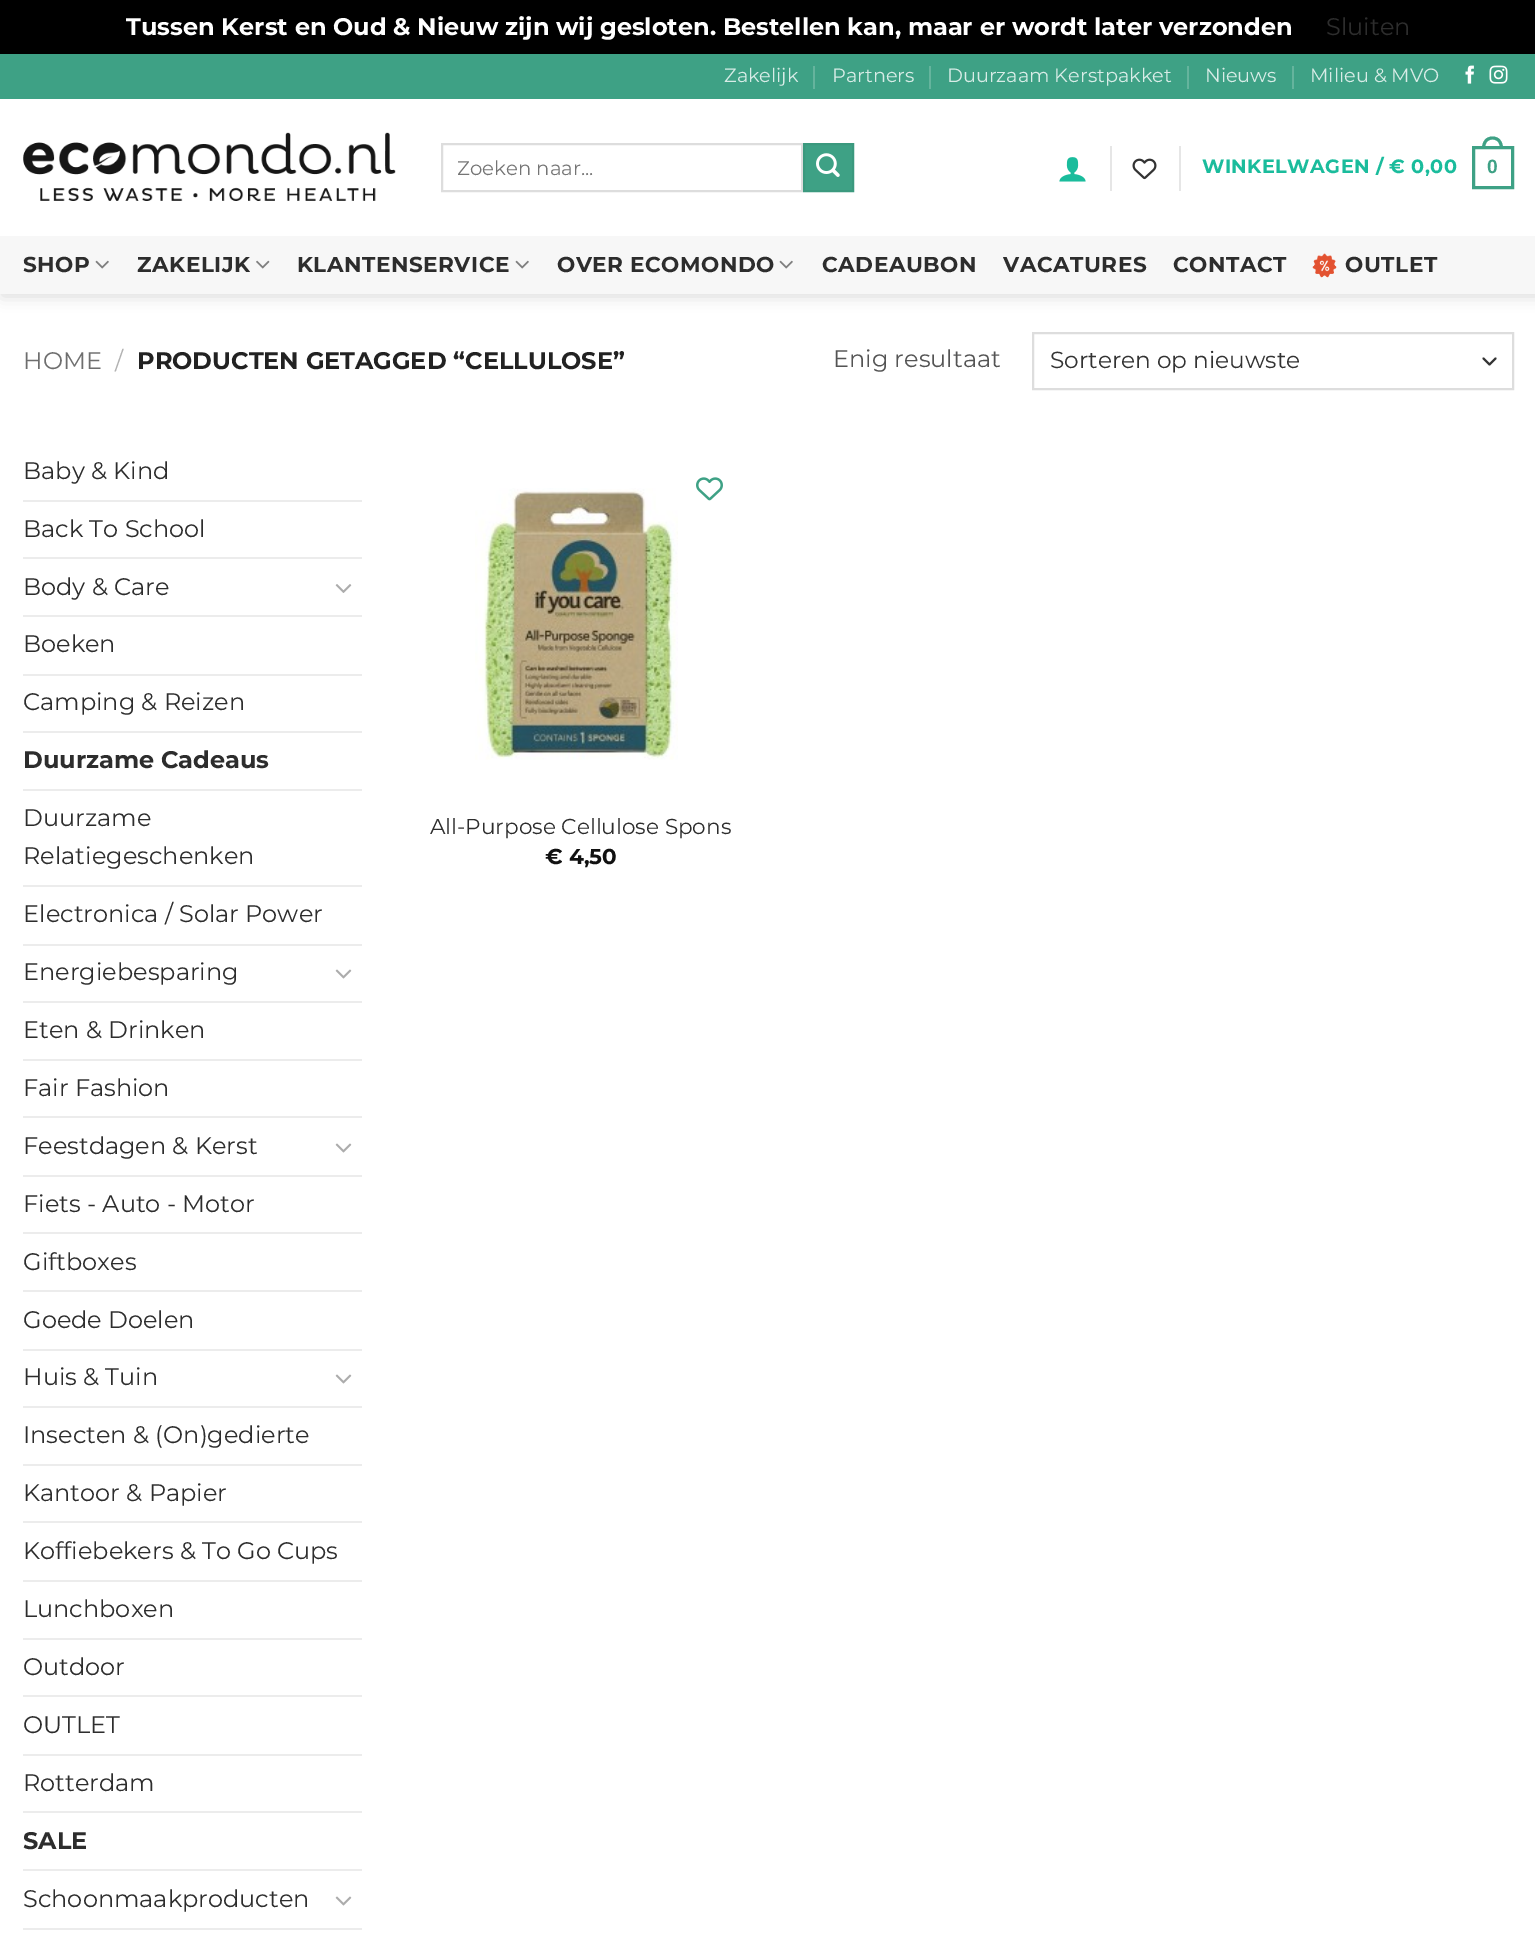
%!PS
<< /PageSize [1535 1944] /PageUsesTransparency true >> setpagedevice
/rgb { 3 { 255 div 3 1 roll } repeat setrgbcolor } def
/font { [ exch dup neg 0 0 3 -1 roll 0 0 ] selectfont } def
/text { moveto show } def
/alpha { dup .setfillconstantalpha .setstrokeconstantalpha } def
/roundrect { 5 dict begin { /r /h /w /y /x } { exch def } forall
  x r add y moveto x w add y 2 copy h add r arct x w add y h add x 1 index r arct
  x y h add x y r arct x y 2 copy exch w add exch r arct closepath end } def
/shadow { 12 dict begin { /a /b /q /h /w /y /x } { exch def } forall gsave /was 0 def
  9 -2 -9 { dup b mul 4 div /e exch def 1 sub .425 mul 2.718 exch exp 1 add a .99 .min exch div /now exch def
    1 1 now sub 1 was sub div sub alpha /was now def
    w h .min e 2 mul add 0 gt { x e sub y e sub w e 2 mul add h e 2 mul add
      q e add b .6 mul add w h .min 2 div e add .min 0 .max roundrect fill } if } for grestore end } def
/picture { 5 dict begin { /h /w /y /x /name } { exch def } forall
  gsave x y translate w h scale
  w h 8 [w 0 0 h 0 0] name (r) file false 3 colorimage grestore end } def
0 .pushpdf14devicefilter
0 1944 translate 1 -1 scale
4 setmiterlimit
0 0 0 rgb
0 0 1535 1944 rectfill
255 255 255 rgb
0 99 1535 1845 rectfill
gsave
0 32 moveto 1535 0 rlineto 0 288 rlineto -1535 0 rlineto closepath 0 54 moveto 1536 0 rlineto 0 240 rlineto -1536 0 rlineto closepath eoclip newpath
0 0 0 rgb
2 56 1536 240 0 7.5 0.15 shadow
grestore
62 161 133 rgb
0 54 1535 45 rectfill
101 180 157 rgb
813 66 2 23 rectfill
929 66 2 23 rectfill
1187 66 2 23 rectfill
1292 66 2 23 rectfill
(img_01.rgb) 1465 65 9 19 picture
(img_02.rgb) 1489 65 19 19 picture
(img_03.rgb) 23 132 373 69 picture
221 221 221 rgb
2 setlinewidth
442 144 360 47 rectstroke
62 161 133 rgb
804 144 moveto 49 0 rlineto 0 47 rlineto -49 0 rlineto closepath gsave fill grestore
59 153 126 rgb
stroke
(img_04.rgb) 816 153 24 24 picture
(img_05.rgb) 1059 157 27 25 picture
230 230 230 rgb
1110 146 2 45 rectfill
(img_06.rgb) 1132 158 25 22 picture
1179 146 2 45 rectfill
62 161 133 rgb
3 setlinewidth
1473.5 147.5 39 40 rectstroke
1492.5 136.5 moveto 7 0 10.5 5.5 10.5 12 rcurveto -21 0 rlineto 0 -6.5 3.5 -12 10.5 -12 rcurveto closepath 1492.5 139.5 moveto 5.5 0 7.5 4.5 7.5 9 rcurveto -15 0 rlineto 0 -4.5 2 -9 7.5 -9 rcurveto closepath eofill
247 247 247 rgb
0 236 1535 58 rectfill
(img_07.rgb) 95 260 14 9 picture
(img_08.rgb) 256 260 14 9 picture
(img_07.rgb) 515 260 14 9 picture
(img_07.rgb) 779 260 14 9 picture
(img_09.rgb) 1312 253 25 25 picture
51 51 51 rgb
2 setlinewidth
1 setlinecap
1 setlinejoin
1483.5 358.5 moveto 6 6 rlineto 6 -6 rlineto stroke
221 221 221 rgb
0 setlinecap
0 setlinejoin
1033 333 480 56 rectstroke
236 236 236 rgb
23 500 339 2 rectfill
23 557 339 2 rectfill
(img_10.rgb) 335 584 17 9 picture
23 615 339 2 rectfill
23 674 339 2 rectfill
23 731 339 2 rectfill
23 789 339 2 rectfill
23 885 339 2 rectfill
23 944 339 2 rectfill
(img_11.rgb) 335 969 17 10 picture
23 1001 339 2 rectfill
23 1059 339 2 rectfill
23 1116 339 2 rectfill
(img_11.rgb) 335 1143 17 10 picture
23 1175 339 2 rectfill
23 1232 339 2 rectfill
23 1290 339 2 rectfill
23 1349 339 2 rectfill
(img_11.rgb) 335 1374 17 10 picture
23 1406 339 2 rectfill
23 1464 339 2 rectfill
23 1521 339 2 rectfill
23 1580 339 2 rectfill
23 1638 339 2 rectfill
23 1695 339 2 rectfill
23 1754 339 2 rectfill
23 1811 339 2 rectfill
23 1869 339 2 rectfill
(img_11.rgb) 335 1896 17 10 picture
23 1928 339 2 rectfill
(img_12.rgb) 696 477 27 24 picture
(img_13.rgb) 475 488 203 272 picture
/Montserrat-Bold 24 font
255 255 255 rgb
(Tussen Kerst en Oud & Nieuw zijn wij gesloten. Bestellen kan, maar er wordt later verzonden) 126 35 text
/Montserrat-Regular 24 font
45 45 45 rgb
(Sluiten) 1326 35 text
/Montserrat-Regular 19.25 font
216 236 231 rgb
(Zakelijk) 724 82 text
(Partners) 832 82 text
(Duurzaam Kerstpakket) 947 82 text
(Nieuws) 1205 82 text
(Milieu & MVO) 1310 82 text
/Montserrat-Regular 19.75 font
117 117 117 rgb
(Zoeken naar...) 457 175 text
/Montserrat-Bold 19.25 font
26 188 156 rgb
1202 173 moveto 0.4 0 (WINKELWAGEN / € 0,00) ashow
/LiberationSans-Bold 19.25 font
62 161 133 rgb
1487 173 moveto 0.4 0 (0) ashow
/Montserrat-Bold 21.6 font
45 45 45 rgb
23 272 moveto 0.5 0 (SHOP) ashow
137 272 moveto 0.5 0 (ZAKELIJK) ashow
297 272 moveto 0.5 0 (KLANTENSERVICE) ashow
557 272 moveto 0.5 0 (OVER ECOMONDO) ashow
822 272 moveto 0.5 0 (CADEAUBON) ashow
1003 272 moveto 0.5 0 (VACATURES) ashow
1173 272 moveto 0.5 0 (CONTACT) ashow
1345 272 moveto 0.5 0 (OUTLET) ashow
/Montserrat-Regular 24 font
110 110 110 rgb
(HOME) 23 369 text
178 178 178 rgb
(/) 115 369 text
/Montserrat-Bold 24 font
34 34 34 rgb
(PRODUCTEN GETAGGED “CELLULOSE”) 137 369 text
/Montserrat-Regular 24 font
84 84 84 rgb
(Enig resultaat) 833 367 text
/Montserrat-Regular 23.25 font
51 51 51 rgb
(Sorteren op nieuwste) 1050 368 text
/Montserrat-Regular 24 font
45 45 45 rgb
(Baby & Kind) 23 479 text
(Back To School) 23 537 text
(Body & Care) 23 595 text
(Boeken) 23 652 text
(Camping & Reizen) 23 710 text
/Montserrat-Bold 24 font
(Duurzame Cadeaus) 23 768 text
/Montserrat-Regular 24 font
(Duurzame) 23 826 text
(Relatiegeschenken) 23 864 text
(Electronica / Solar Power) 23 922 text
(Energiebesparing) 23 980 text
(Eten & Drinken) 23 1038 text
(Fair Fashion) 23 1096 text
(Feestdagen & Kerst) 23 1154 text
(Fiets - Auto - Motor) 23 1212 text
(Giftboxes) 23 1270 text
(Goede Doelen) 23 1328 text
(Huis & Tuin) 23 1385 text
(Insecten & \(On\)gedierte) 23 1443 text
(Kantoor & Papier) 23 1501 text
(Koffiebekers & To Go Cups) 23 1559 text
(Lunchboxen) 23 1617 text
(Outdoor) 23 1675 text
(OUTLET) 23 1733 text
(Rotterdam) 23 1791 text
/Montserrat-Bold 24 font
(SALE) 23 1849 text
/Montserrat-Regular 24 font
(Schoonmaakproducten) 23 1907 text
/Montserrat-Regular 21.6 font
(All-Purpose Cellulose Spons) 430 834 text
/Montserrat-Bold 21.6 font
17 17 17 rgb
(€ 4,50) 545 864 text
.poppdf14devicefilter showpage
